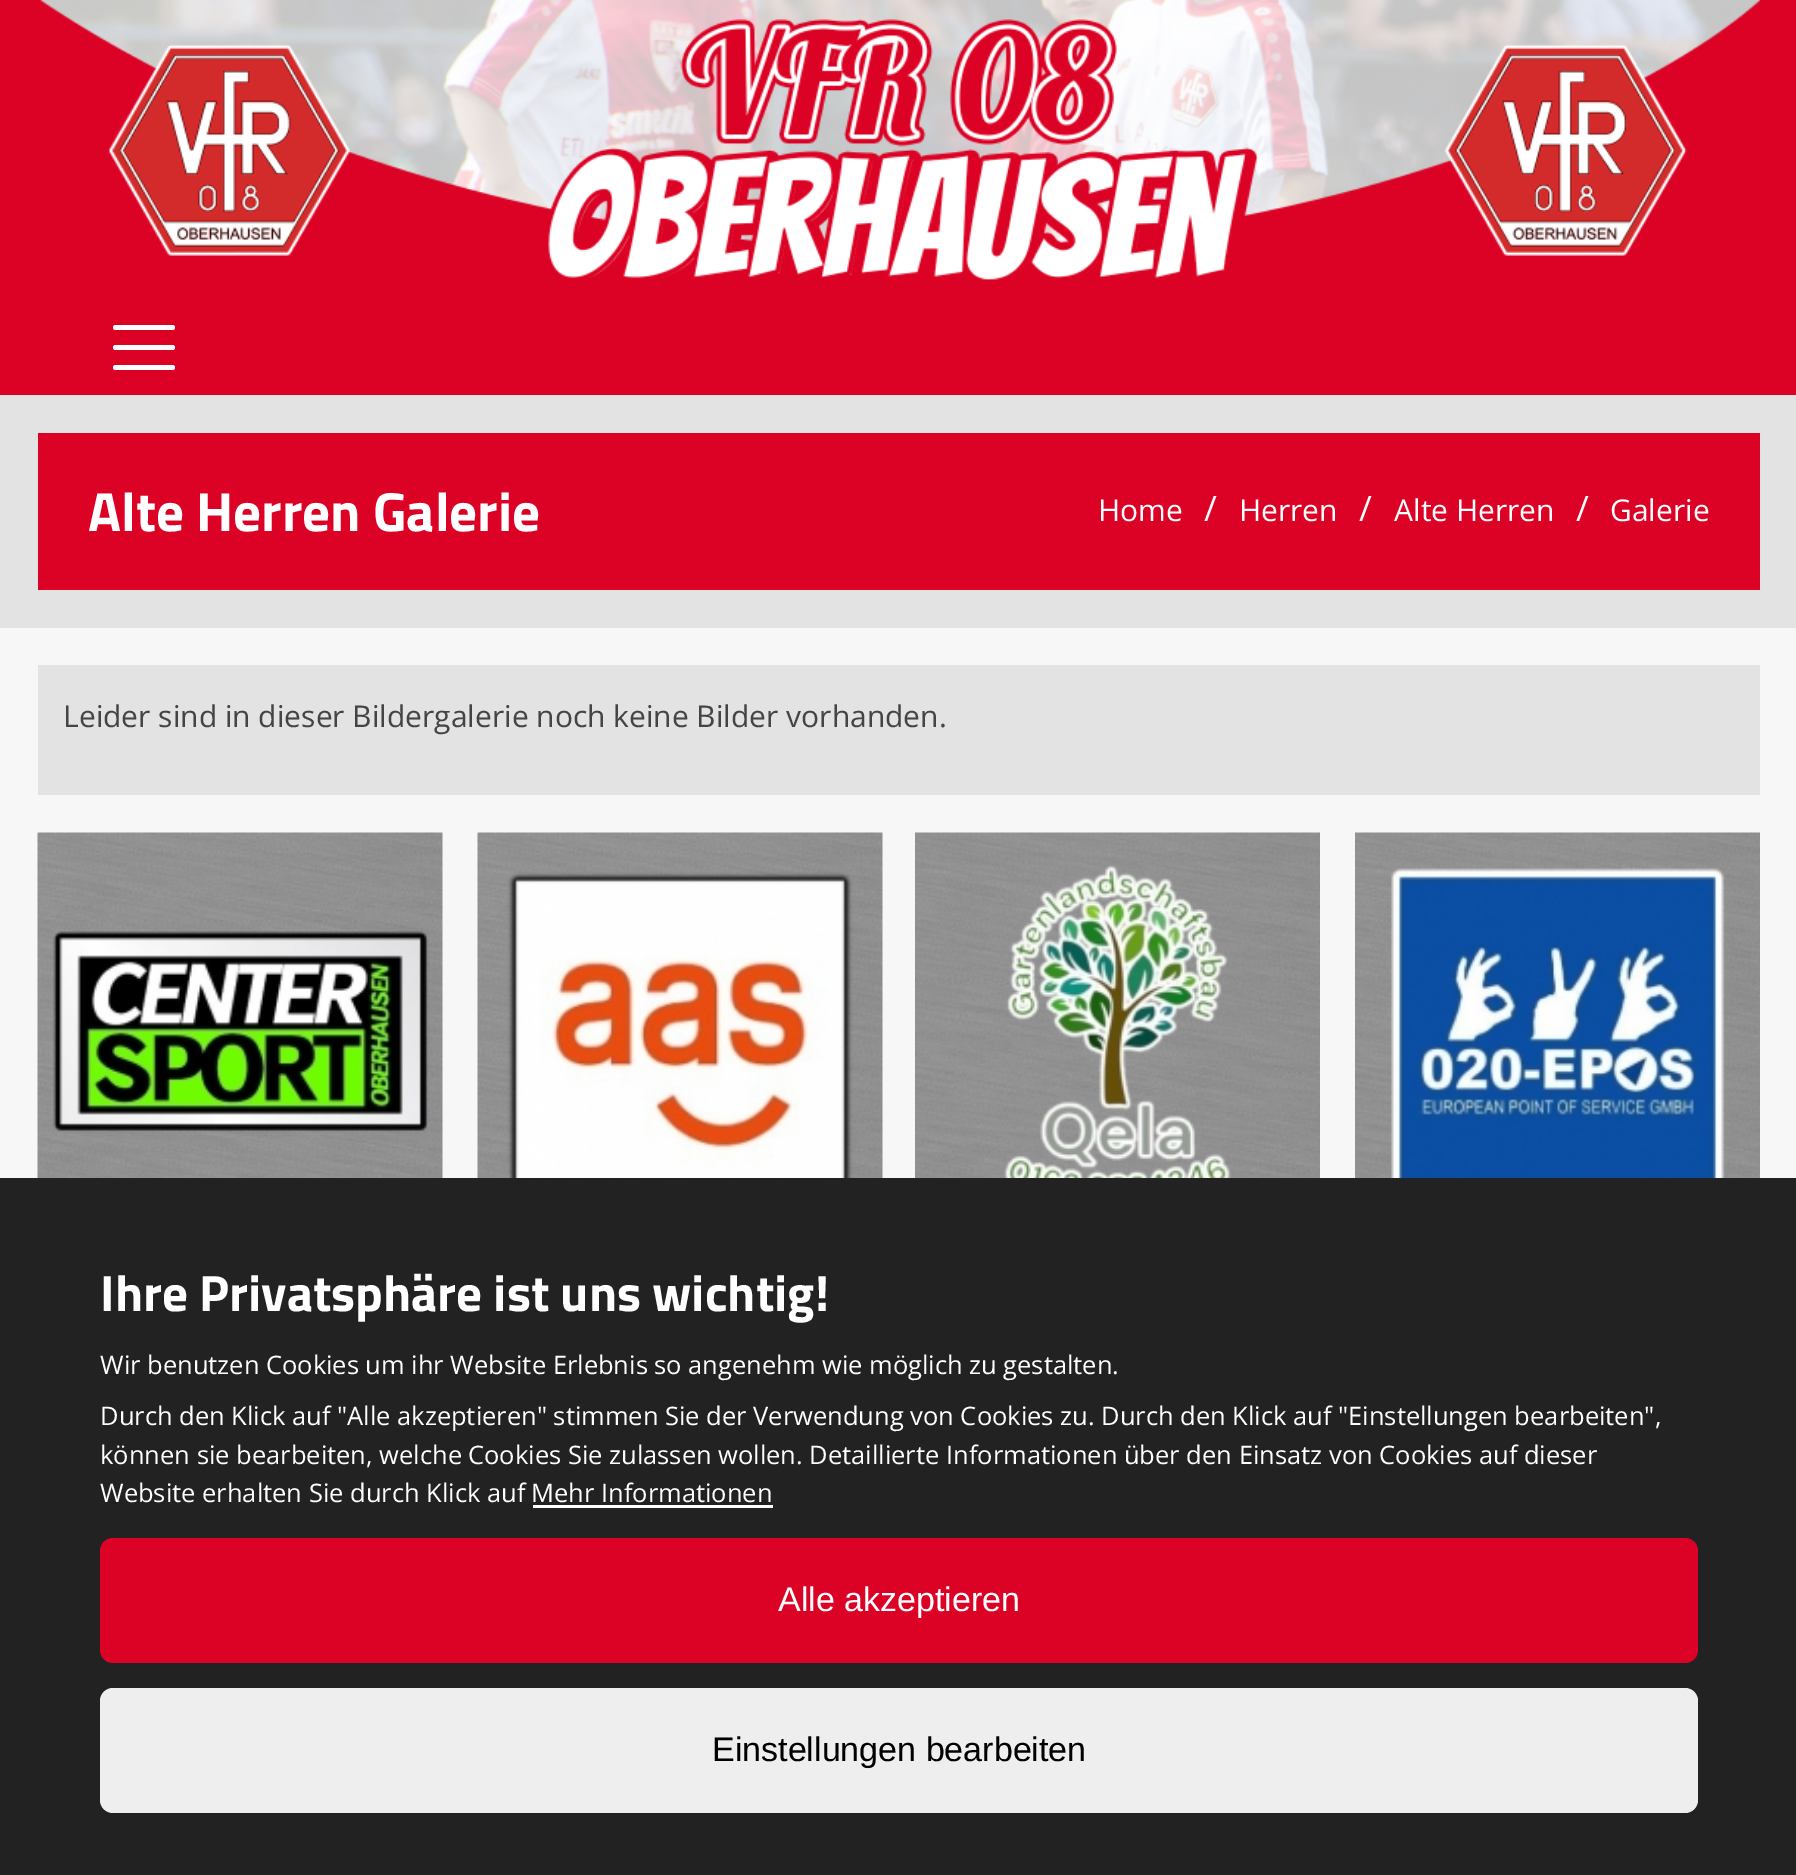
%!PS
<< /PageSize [1796 1875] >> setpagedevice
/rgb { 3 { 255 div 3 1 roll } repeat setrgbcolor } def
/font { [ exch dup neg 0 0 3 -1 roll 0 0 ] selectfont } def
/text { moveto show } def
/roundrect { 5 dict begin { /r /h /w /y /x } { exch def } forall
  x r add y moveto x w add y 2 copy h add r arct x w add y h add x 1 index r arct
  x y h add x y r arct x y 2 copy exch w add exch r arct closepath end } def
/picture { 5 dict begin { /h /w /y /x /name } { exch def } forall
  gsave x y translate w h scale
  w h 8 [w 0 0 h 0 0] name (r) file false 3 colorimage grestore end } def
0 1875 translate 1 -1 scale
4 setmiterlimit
247 247 247 rgb
0 0 1796 1875 rectfill
220 2 38 rgb
0 0 1796 395 rectfill
(img_01.rgb) 40 0 1720 280 picture
255 255 255 rgb
113 325 62 5 2.5 roundrect fill
113 345 62 5 2.5 roundrect fill
113 365 62 5 2.5 roundrect fill
227 227 227 rgb
0 395 1796 233 rectfill
220 2 38 rgb
38 433 1722 157 rectfill
227 227 227 rgb
38 665 1722 130 rectfill
(img_02.rgb) 37 832 406 346 picture
(img_03.rgb) 477 832 406 346 picture
(img_04.rgb) 915 832 405 346 picture
(img_05.rgb) 1355 832 405 346 picture
34 34 34 rgb
0 1178 1796 697 rectfill
255 255 255 rgb
533 1505 240 3 rectfill
220 2 38 rgb
100 1538 1598 125 13 roundrect fill
238 238 238 rgb
100 1688 1598 125 13 roundrect fill
/TitilliumWeb-Bold 55 font
255 255 255 rgb
(Alte Herren Galerie) 88 531 text
/OpenSans-Regular 30 font
(Home) 1098 521 text
/OpenSans-Regular 35 font
(/) 1204 521 text
/OpenSans-Regular 30 font
(Herren) 1239 521 text
/OpenSans-Regular 35 font
(/) 1359 521 text
/OpenSans-Regular 30 font
(Alte Herren) 1394 521 text
/OpenSans-Regular 35 font
(/) 1576 521 text
/OpenSans-Regular 30 font
(Galerie) 1610 521 text
68 68 68 rgb
(Leider sind in dieser Bildergalerie noch keine Bilder vorhanden.) 63 727 text
/TitilliumWeb-Bold 51 font
255 255 255 rgb
(Ihre Privatsphäre ist uns wichtig!) 100 1311 text
/OpenSans-Regular 25.5 font
(Wir benutzen Cookies um ihr Website Erlebnis so) 100 1374 text
(angenehm wie möglich zu gestalten.) 688 1374 text
(Durch den Klick auf "Alle akzeptieren" stimmen Sie der Verwendung von Cookies zu. Durch den Klick auf "Einstellungen bearbeiten",) 100 1425 text
(können sie bearbeiten, welche) 100 1464 text
(Cookies Sie zulassen wollen. Detaillierte Informationen über den Einsatz von Cookies auf dieser) 468 1464 text
(Website erhalten Sie durch Klick auf) 100 1502 text
(Mehr Informationen) 531 1502 text
/LiberationSans-Regular 34 font
(Alle akzeptieren) 778 1611 text
0 0 0 rgb
(Einstellungen bearbeiten) 712 1761 text
showpage
